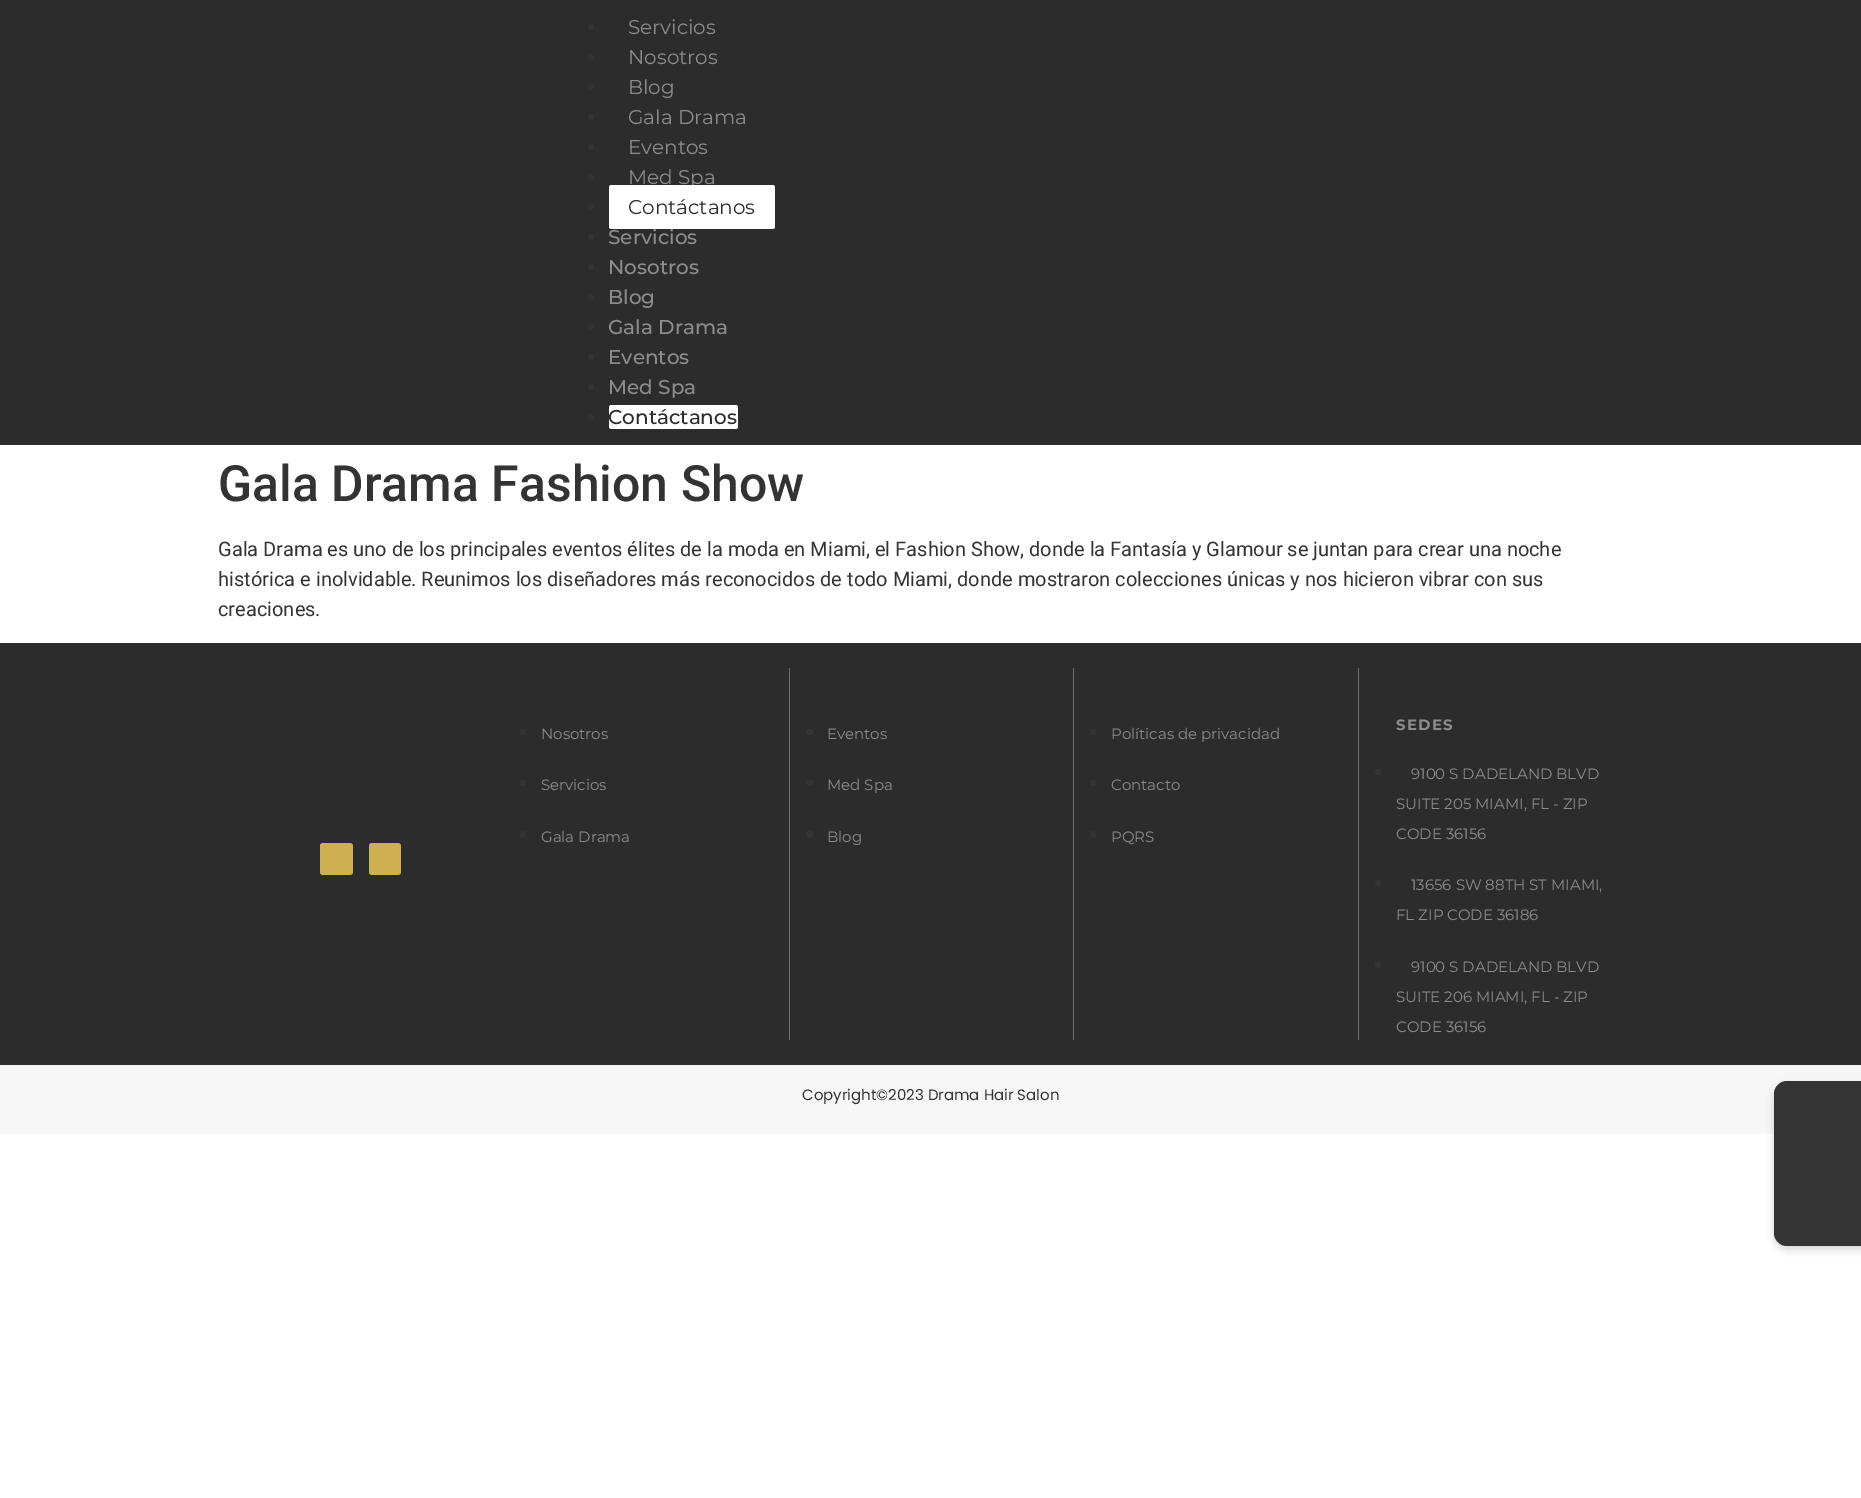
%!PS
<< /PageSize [1861 1498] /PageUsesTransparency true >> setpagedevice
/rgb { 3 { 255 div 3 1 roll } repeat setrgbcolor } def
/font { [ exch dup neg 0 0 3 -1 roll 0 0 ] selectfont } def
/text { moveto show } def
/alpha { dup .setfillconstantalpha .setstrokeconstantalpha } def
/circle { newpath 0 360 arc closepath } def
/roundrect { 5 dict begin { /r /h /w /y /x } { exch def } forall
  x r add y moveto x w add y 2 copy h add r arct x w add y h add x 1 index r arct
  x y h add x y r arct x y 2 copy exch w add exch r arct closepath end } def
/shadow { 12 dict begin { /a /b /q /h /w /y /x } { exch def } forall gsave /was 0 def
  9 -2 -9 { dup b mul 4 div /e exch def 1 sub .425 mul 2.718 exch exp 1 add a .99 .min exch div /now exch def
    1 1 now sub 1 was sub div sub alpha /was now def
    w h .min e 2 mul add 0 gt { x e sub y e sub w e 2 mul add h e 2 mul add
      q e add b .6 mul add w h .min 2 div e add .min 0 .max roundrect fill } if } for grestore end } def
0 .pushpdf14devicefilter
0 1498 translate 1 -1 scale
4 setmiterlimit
255 255 255 rgb
0 0 1861 1498 rectfill
44 44 44 rgb
0 0 1861 445 rectfill
51 51 51 rgb
591 27 3 circle fill
591 57 3 circle fill
591 87 3 circle fill
591 117 3 circle fill
591 147 3 circle fill
591 177 3 circle fill
591 207 3 circle fill
591 237 3 circle fill
591 267 3 circle fill
591 297 3 circle fill
591 327 3 circle fill
591 357 3 circle fill
591 387 3 circle fill
591 417 3 circle fill
255 255 255 rgb
609 405 129 24 2.5 roundrect fill
44 44 44 rgb
0 643 1861 422 rectfill
51 51 51 rgb
523 732 3 circle fill
523 783 3 circle fill
520 831 6 7 3 roundrect fill
112 112 112 rgb
1073 668 1 372 rectfill
789 668 1 372 rectfill
51 51 51 rgb
806 729 7 6 3 roundrect fill
806 780 7 6 3 roundrect fill
809.5 834.5 3.5 circle fill
112 112 112 rgb
1358 668 1 372 rectfill
51 51 51 rgb
1093 732 3 circle fill
1093 783 3 circle fill
1090 831 6 7 3 roundrect fill
1378 772 3 circle fill
1378 883 3 circle fill
1375 961 6 7 3 roundrect fill
206 176 80 rgb
320 843 33 32 3 roundrect fill
369 843 32 32 3 roundrect fill
246 246 246 rgb
0 1065 1861 69 rectfill
0 0 0 rgb
1774 1085 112 165 13 4 0.15 shadow
52 52 52 rgb
1787 1081 moveto 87 0 rlineto 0 165 rlineto -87 0 rlineto -7 0 -13 -6 -13 -13 rcurveto 0 -139 rlineto 0 -7 6 -13 13 -13 rcurveto closepath fill
/Montserrat-Regular 20 font
141 140 140 rgb
(Servicios) 628 34 text
(Nosotros) 628 64 text
(Blog) 628 94 text
(Gala Drama) 628 124 text
(Eventos) 628 154 text
(Med Spa) 628 184 text
255 255 255 rgb
609 185 166 44 2.5 roundrect fill
44 44 44 rgb
(Contáctanos) 628 214 text
/Montserrat-Medium 20 font
141 140 140 rgb
(Servicios) 608 244 text
(Nosotros) 608 274 text
(Blog) 608 304 text
(Gala Drama) 608 334 text
(Eventos) 608 364 text
(Med Spa) 608 394 text
44 44 44 rgb
(Contáctanos) 608 424 text
/Roboto-Medium 50 font
51 51 51 rgb
(Gala Drama Fashion Show) 218 501 text
/Roboto-Regular 20 font
(Gala Drama es uno de los principales eventos élites de la moda en Miami, el Fashion Show, donde la Fantasía y Glamour se juntan para crear una noche) 218 556 text
(histórica e inolvidable. Reunimos los diseñadores más reconocidos de todo Miami, donde mostraron colecciones únicas y nos hicieron vibrar con sus) 218 586 text
(creaciones.) 218 616 text
/Montserrat-Regular 15 font
141 140 140 rgb
(Nosotros) 541 739 text
(Servicios) 541 790 text
(Gala Drama) 541 842 text
(Eventos) 827 739 text
(Med Spa) 827 790 text
(Blog) 827 842 text
(Políticas de privacidad) 1111 739 text
(Contacto) 1111 790 text
(PQRS) 1111 842 text
/Montserrat-Bold 15 font
1396 730 moveto 1.25 0 (SEDES) ashow
/Montserrat-Regular 15 font
(9100 S DADELAND BLVD) 1411 779 text
(SUITE 205 MIAMI, FL - ZIP) 1396 809 text
(CODE 36156) 1396 839 text
(13656 SW 88TH ST MIAMI,) 1411 890 text
(FL ZIP CODE 36186) 1396 920 text
(9100 S DADELAND BLVD) 1411 972 text
(SUITE 206 MIAMI, FL - ZIP) 1396 1002 text
(CODE 36156) 1396 1032 text
/Poppins-Regular 15 font
51 51 51 rgb
(Copyright©2023 Drama Hair Salon) 802 1100 text
.poppdf14devicefilter showpage
